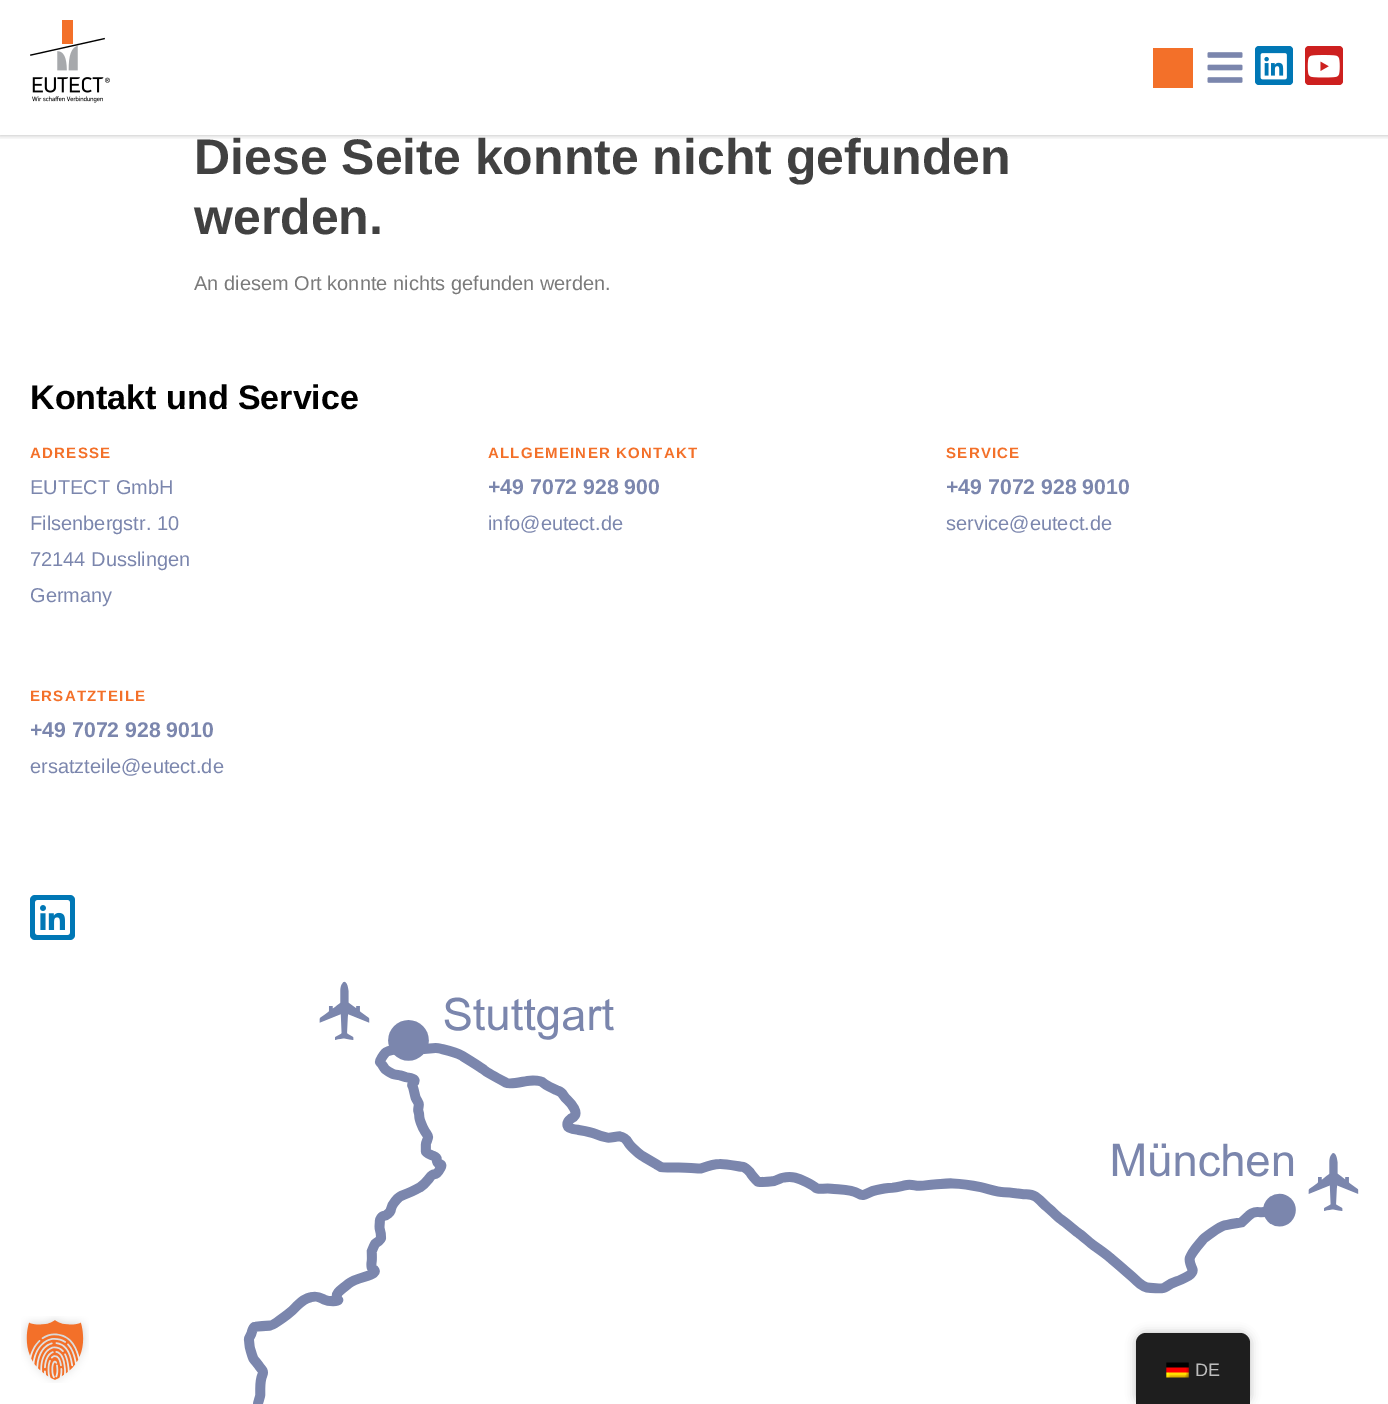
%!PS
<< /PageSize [1388 1404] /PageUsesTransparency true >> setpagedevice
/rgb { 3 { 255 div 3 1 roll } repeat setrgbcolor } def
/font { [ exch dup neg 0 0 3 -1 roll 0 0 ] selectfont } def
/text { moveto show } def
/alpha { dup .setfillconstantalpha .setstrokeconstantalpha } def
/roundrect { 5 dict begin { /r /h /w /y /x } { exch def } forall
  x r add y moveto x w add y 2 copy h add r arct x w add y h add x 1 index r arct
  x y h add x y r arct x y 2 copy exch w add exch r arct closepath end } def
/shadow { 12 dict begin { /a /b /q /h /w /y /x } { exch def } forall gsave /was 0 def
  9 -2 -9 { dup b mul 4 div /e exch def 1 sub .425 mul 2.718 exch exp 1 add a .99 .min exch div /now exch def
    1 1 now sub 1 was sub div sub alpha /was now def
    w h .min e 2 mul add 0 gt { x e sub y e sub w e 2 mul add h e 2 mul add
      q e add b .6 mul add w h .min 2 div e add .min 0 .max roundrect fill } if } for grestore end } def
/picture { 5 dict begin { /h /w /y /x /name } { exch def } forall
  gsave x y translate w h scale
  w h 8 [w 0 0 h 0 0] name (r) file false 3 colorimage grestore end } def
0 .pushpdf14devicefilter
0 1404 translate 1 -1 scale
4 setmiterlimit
255 255 255 rgb
0 0 1388 1404 rectfill
gsave
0 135 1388 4 rectclip
0 0 0 rgb
0 0 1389 135 0 3 0.3 shadow
grestore
(img_01.rgb) 30 20 80 83 picture
243 112 41 rgb
1153 48 40 40 rectfill
(img_02.rgb) 1207 52 36 31 picture
0 119 181 rgb
1255 46 38 39 4 roundrect fill
(img_03.rgb) 1260 53 27 27 picture
205 32 31 rgb
1305 46 38 39 4 roundrect fill
(img_04.rgb) 1307 55 33 23 picture
0 119 181 rgb
30 895 45 45 5 roundrect fill
(img_05.rgb) 35 900 35 35 picture
(img_06.rgb) 243 981 1116 423 picture
(img_07.rgb) 21 1316 68 67 picture
0 0 0 rgb
1136 1333 114 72 10 5 0.25 shadow
30 30 30 rgb
1146 1333 moveto 94 0 rlineto 5.5 0 10 4.5 10 10 rcurveto 0 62 rlineto -114 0 rlineto 0 -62 rlineto 0 -5.5 4.5 -10 10 -10 rcurveto closepath fill
(img_08.rgb) 1166 1362 23 16 picture
/LiberationSans-Bold 50 font
65 65 65 rgb
(Diese Seite konnte nicht gefunden) 194 174 text
(werden.) 194 234 text
/LiberationSans-Regular 20 font
122 122 122 rgb
(An diesem Ort konnte nichts gefunden werden.) 194 290 text
/LiberationSans-Bold 34 font
0 0 0 rgb
(Kontakt und Service) 30 409 text
/LiberationSans-Bold 15 font
243 112 41 rgb
30 458 moveto 1.25 0 (ADRESSE) ashow
/LiberationSans-Regular 20 font
123 134 173 rgb
(EUTECT GmbH) 30 494 text
(Filsenbergstr. 10) 30 530 text
(72144 Dusslingen) 30 566 text
(Germany) 30 602 text
/LiberationSans-Bold 15 font
243 112 41 rgb
488 458 moveto 1.25 0 (ALLGEMEINER KONTAKT) ashow
/LiberationSans-Bold 21.25 font
123 134 173 rgb
(+49 7072 928 900) 488 494 text
/LiberationSans-Regular 20 font
(info@eutect.de) 488 530 text
/LiberationSans-Bold 15 font
243 112 41 rgb
946 458 moveto 1.25 0 (SERVICE) ashow
/LiberationSans-Bold 21.25 font
123 134 173 rgb
(+49 7072 928 9010) 946 494 text
/LiberationSans-Regular 20 font
(service@eutect.de) 946 530 text
/LiberationSans-Bold 15 font
243 112 41 rgb
30 701 moveto 1.25 0 (ERSATZTEILE) ashow
/LiberationSans-Bold 21.25 font
123 134 173 rgb
(+49 7072 928 9010) 30 737 text
/LiberationSans-Regular 20 font
(ersatzteile@eutect.de) 30 773 text
/LiberationSans-Regular 18 font
189 189 189 rgb
(DE) 1195 1376 text
.poppdf14devicefilter showpage
